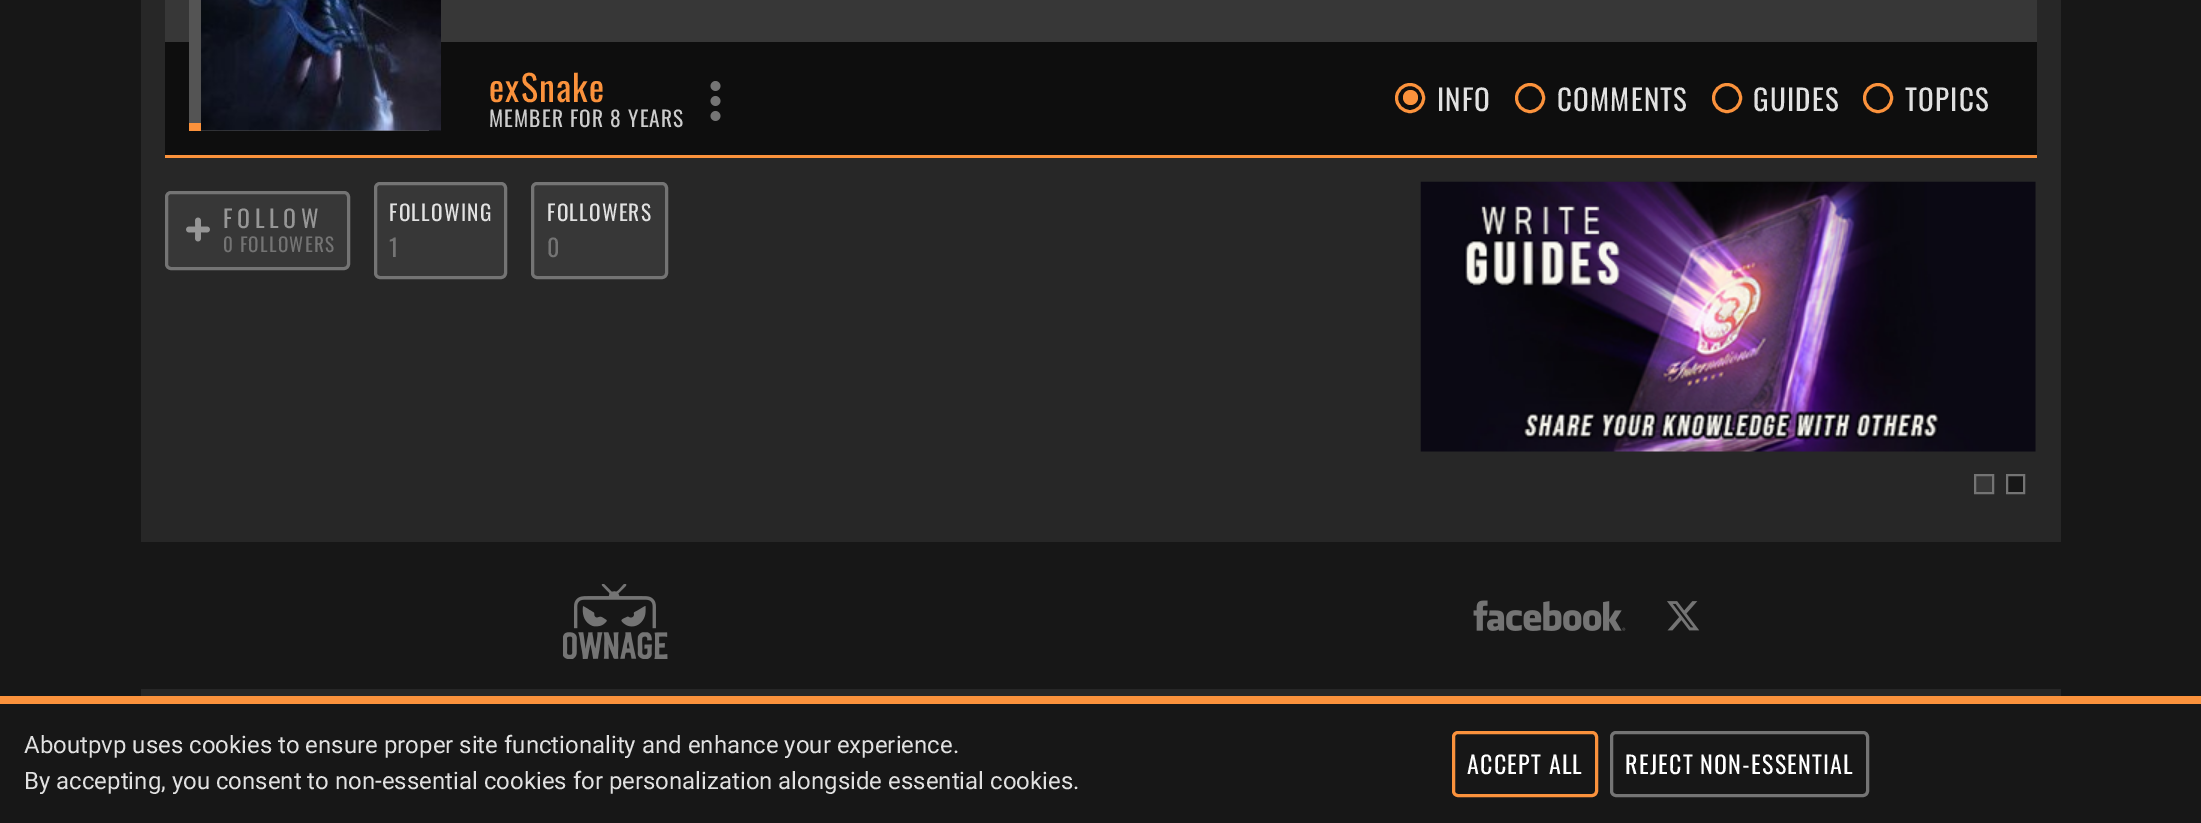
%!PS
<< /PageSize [2201 823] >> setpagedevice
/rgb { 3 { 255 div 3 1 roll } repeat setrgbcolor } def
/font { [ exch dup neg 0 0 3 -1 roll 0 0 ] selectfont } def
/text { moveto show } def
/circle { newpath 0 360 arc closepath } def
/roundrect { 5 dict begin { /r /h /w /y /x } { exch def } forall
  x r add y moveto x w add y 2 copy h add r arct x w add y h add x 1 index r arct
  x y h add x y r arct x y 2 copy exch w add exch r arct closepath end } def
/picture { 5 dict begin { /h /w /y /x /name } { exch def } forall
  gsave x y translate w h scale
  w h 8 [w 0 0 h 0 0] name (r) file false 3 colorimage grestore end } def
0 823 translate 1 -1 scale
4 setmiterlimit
23 23 23 rgb
0 0 2201 823 rectfill
39 39 39 rgb
141 0 1920 542 rectfill
251 146 60 rgb
165 155 1872 3 rectfill
55 55 55 rgb
165 0 1872 42 rectfill
14 14 14 rgb
165 42 1872 113 rectfill
84 84 84 rgb
189 0 240 131 rectfill
251 146 60 rgb
189 123 12 8 rectfill
(img_01.rgb) 201 0 240 131 picture
(img_02.rgb) 710 81 11 40 picture
3 setlinewidth
1410 98 13.5 circle stroke
1410.5 97.5 7.5 circle fill
1530 98 13.5 circle stroke
1727 98 13.5 circle stroke
1878 98 13.5 circle stroke
55 55 55 rgb
166.5 192.5 182 76 4.5 roundrect gsave fill grestore
116 116 116 rgb
stroke
(img_03.rgb) 186 217 24 25 picture
55 55 55 rgb
375.5 183.5 130 94 4.5 roundrect gsave fill grestore
116 116 116 rgb
stroke
55 55 55 rgb
532.5 183.5 134 94 4.5 roundrect gsave fill grestore
116 116 116 rgb
stroke
(img_04.rgb) 1420 181 616 271 picture
55 55 55 rgb
1975 475 moveto 18 0 rlineto 0 18 rlineto -18 0 rlineto closepath gsave fill grestore
116 116 116 rgb
2 setlinewidth
stroke
23 23 23 rgb
2007 475 moveto 17 0 rlineto 0 18 rlineto -17 0 rlineto closepath gsave fill grestore
116 116 116 rgb
stroke
(img_05.rgb) 563 584 105 75 picture
(img_06.rgb) 1473 600 153 31 picture
(img_07.rgb) 1667 601 33 30 picture
39 39 39 rgb
141 689 1920 7 rectfill
251 146 60 rgb
0 696 2201 8 rectfill
3 setlinewidth
1453.5 732.5 143 63 4.5 roundrect stroke
116 116 116 rgb
1611.5 732.5 256 63 4.5 roundrect stroke
/Oswald-Regular 36 font
251 146 60 rgb
489 102 moveto 1.2 0 (exSnake) ashow
/Oswald-Regular 21.5 font
204 204 204 rgb
489 127 moveto 1.1 0 (MEMBER FOR 8 YEARS) ashow
/Oswald-Regular 29 font
225 225 225 rgb
1437 111 moveto 1.2 0 (INFO) ashow
1557 111 moveto 1.2 0 (COMMENTS) ashow
1753 111 moveto 1.2 0 (GUIDES) ashow
1905 111 moveto 1.2 0 (TOPICS) ashow
/Oswald-Regular 24 font
150 150 150 rgb
223 228 moveto 4.75 0 (FOLLOW) ashow
/Oswald-Regular 19.25 font
116 116 116 rgb
223 252 moveto 1.2 0 (0 FOLLOWERS) ashow
/Oswald-Regular 21.5 font
225 225 225 rgb
389 221 moveto 1.2 0 (FOLLOWING) ashow
/Oswald-Regular 24 font
116 116 116 rgb
389 257 moveto 1.2 0 (1) ashow
/Oswald-Regular 21.5 font
225 225 225 rgb
547 221 moveto 1.2 0 (FOLLOWERS) ashow
/Oswald-Regular 24 font
116 116 116 rgb
547 257 moveto 1.2 0 (0) ashow
/Roboto-Regular 24 font
225 225 225 rgb
(Aboutpvp uses cookies to ensure proper site functionality and enhance your experience.) 24 753 text
(By accepting, you consent to non-essential cookies for personalization alongside essential cookies.) 24 789 text
/Oswald-Regular 24 font
255 255 255 rgb
1467 774 moveto 1.2 0 (ACCEPT ALL) ashow
1625 774 moveto 1.2 0 (REJECT NON-ESSENTIAL) ashow
showpage
